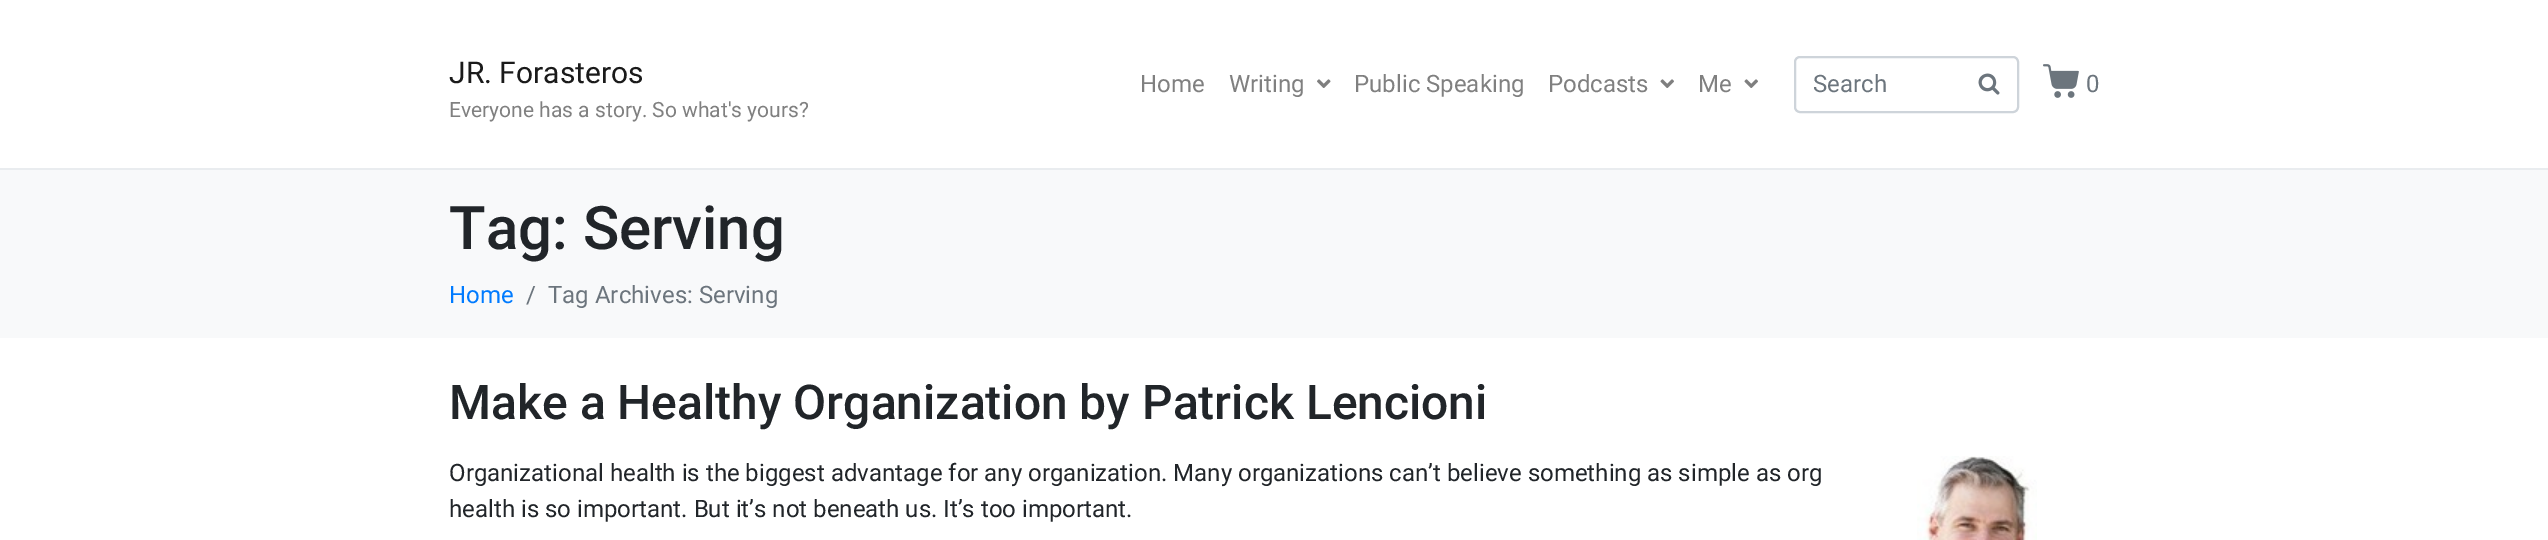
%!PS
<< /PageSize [2548 540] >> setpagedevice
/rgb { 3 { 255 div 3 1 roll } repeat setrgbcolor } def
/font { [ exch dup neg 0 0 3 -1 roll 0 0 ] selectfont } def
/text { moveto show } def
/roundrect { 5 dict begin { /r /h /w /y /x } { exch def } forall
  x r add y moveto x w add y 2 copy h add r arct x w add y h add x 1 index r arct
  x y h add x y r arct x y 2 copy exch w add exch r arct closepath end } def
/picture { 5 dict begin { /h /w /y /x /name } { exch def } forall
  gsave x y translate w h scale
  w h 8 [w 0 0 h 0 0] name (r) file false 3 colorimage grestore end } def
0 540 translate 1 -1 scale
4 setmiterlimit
255 255 255 rgb
0 0 2548 540 rectfill
233 236 239 rgb
0 168 2548 2 rectfill
(img_01.rgb) 1317 79 14 9 picture
(img_02.rgb) 1660 79 14 9 picture
(img_02.rgb) 1744 79 14 9 picture
206 212 218 rgb
2 setlinewidth
1795 57 223 55 5 roundrect stroke
(img_03.rgb) 1978 73 22 22 picture
(img_04.rgb) 2043 64 36 34 picture
248 249 250 rgb
0 170 2548 168 rectfill
(img_05.rgb) 1917 456 120 84 picture
/Roboto-Regular 30 font
26 26 26 rgb
(JR. Forasteros) 449 83 text
/Roboto-Regular 21 font
128 128 128 rgb
(Everyone has a story. So what's yours?) 449 117 text
/Roboto-Regular 24 font
(Home) 1140 92 text
(Writing) 1229 92 text
(Public Speaking) 1354 92 text
(Podcasts) 1548 92 text
(Me) 1698 92 text
108 117 125 rgb
(Search) 1813 92 text
(0) 2086 92 text
/Roboto-Medium 60 font
33 37 41 rgb
(Tag: Serving) 449 249 text
/Roboto-Regular 24 font
0 123 255 rgb
(Home) 449 303 text
108 117 125 rgb
(/) 526 303 text
(Tag Archives: Serving) 548 303 text
/Roboto-Medium 48 font
33 37 41 rgb
(Make a Healthy Organization by Patrick Lencioni) 449 419 text
/Roboto-Regular 24 font
(Organizational health is the biggest advantage for any organization. Many organizations can’t believe something as simple as org) 449 481 text
(health is so important. But it’s not beneath us. It’s too important.) 449 517 text
showpage
